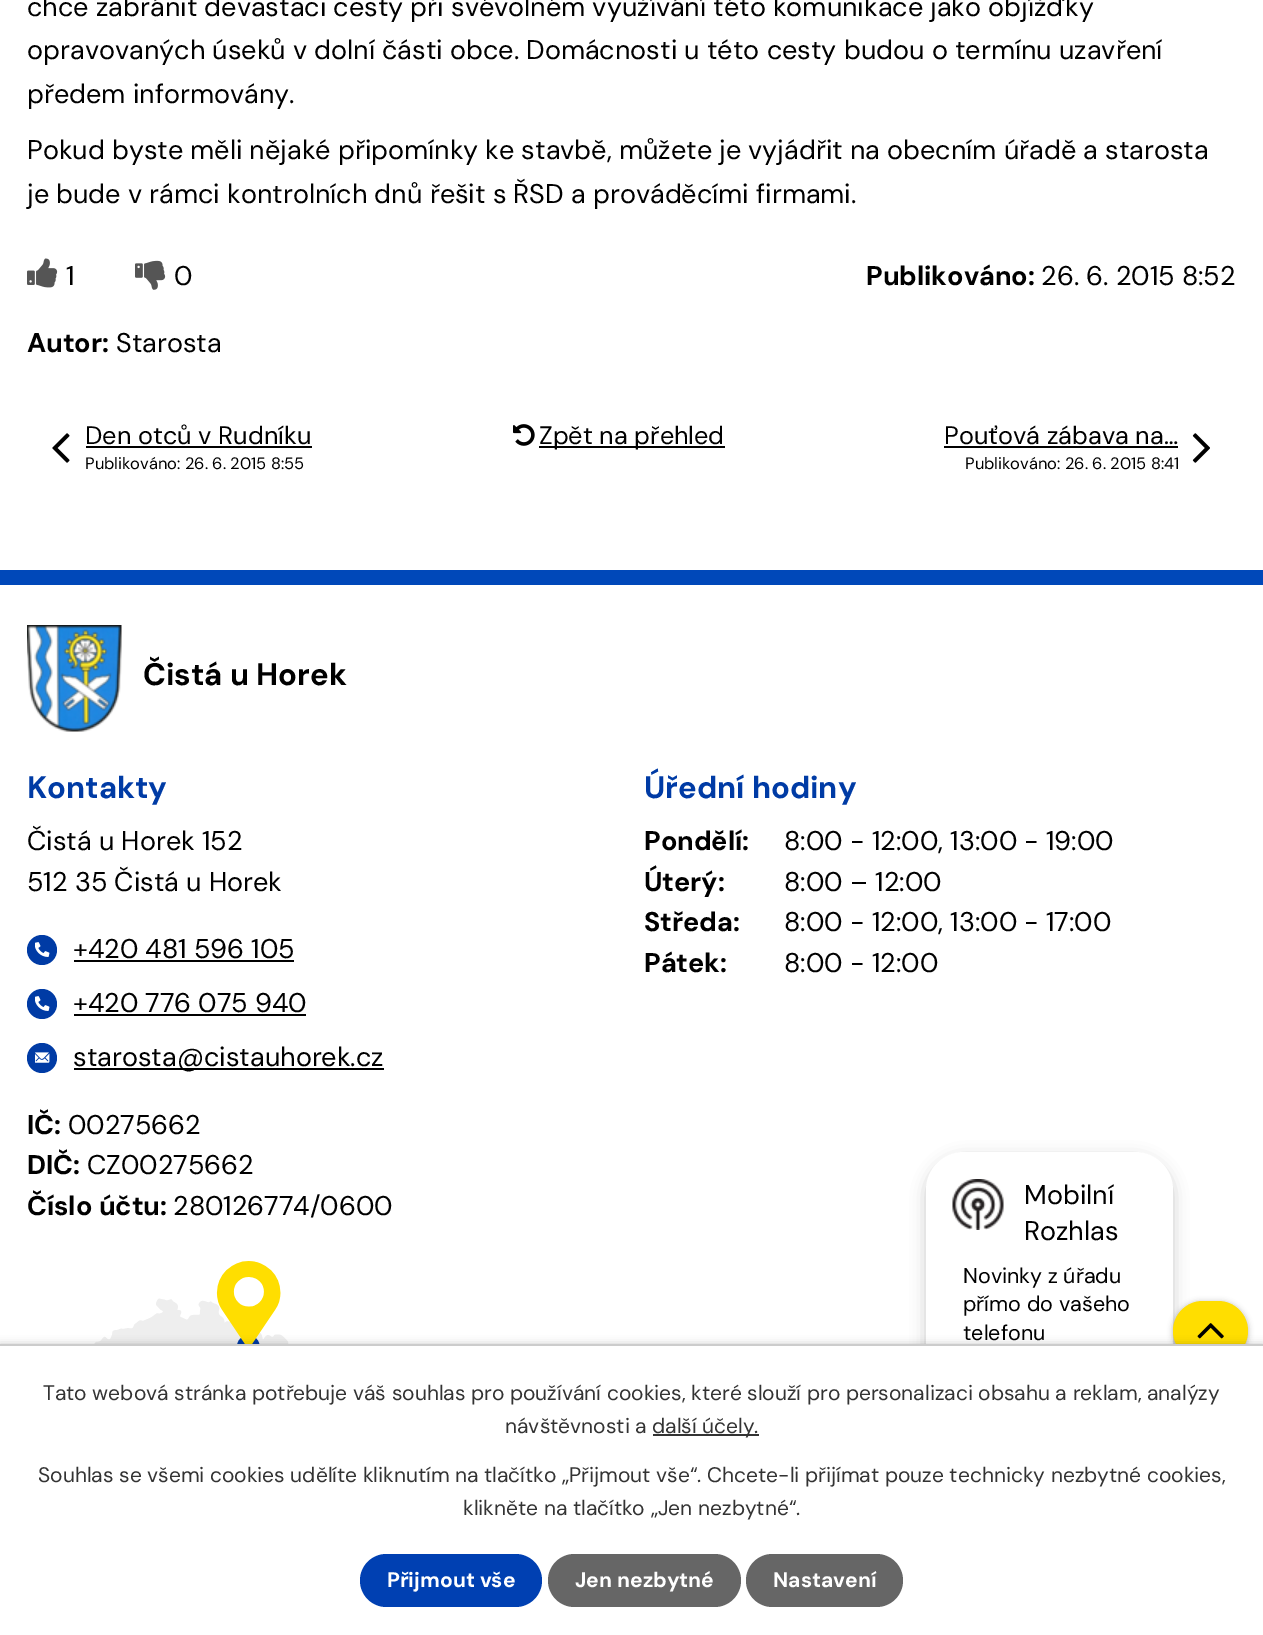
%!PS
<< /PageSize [1263 1635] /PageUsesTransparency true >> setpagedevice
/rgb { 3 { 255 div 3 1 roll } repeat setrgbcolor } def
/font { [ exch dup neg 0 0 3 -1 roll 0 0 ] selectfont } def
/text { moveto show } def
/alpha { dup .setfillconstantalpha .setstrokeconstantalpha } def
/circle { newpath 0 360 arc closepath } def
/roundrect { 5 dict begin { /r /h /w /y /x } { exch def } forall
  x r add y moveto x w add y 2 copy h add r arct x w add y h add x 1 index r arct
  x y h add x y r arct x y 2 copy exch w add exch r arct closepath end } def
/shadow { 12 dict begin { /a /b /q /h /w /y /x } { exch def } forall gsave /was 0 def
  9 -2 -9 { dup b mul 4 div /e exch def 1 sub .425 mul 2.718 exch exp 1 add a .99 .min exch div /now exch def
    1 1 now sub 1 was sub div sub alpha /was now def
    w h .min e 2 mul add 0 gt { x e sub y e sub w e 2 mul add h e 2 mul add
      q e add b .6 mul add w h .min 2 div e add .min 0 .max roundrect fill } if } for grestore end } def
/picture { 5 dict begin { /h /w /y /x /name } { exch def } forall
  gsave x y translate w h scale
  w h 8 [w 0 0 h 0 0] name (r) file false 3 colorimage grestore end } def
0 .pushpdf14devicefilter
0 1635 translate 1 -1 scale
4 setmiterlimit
255 255 255 rgb
0 0 1263 1635 rectfill
(img_01.rgb) 27 258 31 30 picture
(img_02.rgb) 135 260 31 30 picture
(img_03.rgb) 52 433 18 30 picture
0 0 0 rgb
86 446 226 2 rectfill
(img_04.rgb) 513 424 22 22 picture
539 446 186 2 rectfill
944 446 234 2 rectfill
(img_05.rgb) 1192 433 18 30 picture
926 1157 247 226 38 7.5 0.2 shadow
255 255 255 rgb
926 1152 247 227 38 roundrect fill
(img_06.rgb) 952 1179 52 51 picture
0 0 0 rgb
1173 1302 75 60 30 3 0.3 shadow
255 222 0 rgb
1173 1301 75 60 30 roundrect fill
(img_07.rgb) 1197 1323 27 16 picture
0 72 185 rgb
0 570 1263 15 rectfill
(img_08.rgb) 27 625 95 107 picture
0 59 165 rgb
42 950 15 circle fill
(img_09.rgb) 35 942 15 15 picture
0 0 0 rgb
74 960 220 2 rectfill
0 59 165 rgb
42 1004 15 circle fill
(img_09.rgb) 35 996 15 15 picture
0 0 0 rgb
74 1014 232 2 rectfill
0 59 165 rgb
42 1058 15 circle fill
(img_10.rgb) 35 1052 15 11 picture
0 0 0 rgb
74 1068 310 2 rectfill
(img_11.rgb) 94 1261 195 83 picture
0 1344 1263 291 0 4 0.2 shadow
255 255 255 rgb
0 1346 1263 289 rectfill
204 204 204 rgb
0 1344 1263 2 rectfill
51 51 51 rgb
653 1434 106 2 rectfill
0 64 178 rgb
360 1554 182 53 26.5 roundrect fill
102 102 102 rgb
548 1554 193 53 26.5 roundrect fill
746 1554 157 53 26.5 roundrect fill
/DMSans-Regular 27 font
0 0 0 rgb
(chce zabránit devastaci cesty při svévolném využívání této komunikace jako objížďky) 27 16 text
(opravovaných úseků v dolní části obce. Domácnosti u této cesty budou o termínu uzavření) 27 59 text
(předem informovány.) 27 103 text
(Pokud byste měli nějaké připomínky ke stavbě, můžete je vyjádřit na obecním úřadě a starosta) 27 159 text
(je bude v rámci kontrolních dnů řešit s ŘSD a prováděcími firmami.) 27 203 text
(1) 66 285 text
(0) 174 285 text
/DMSans-Bold 27 font
(Publikováno:) 866 285 text
/DMSans-Regular 27 font
(26. 6. 2015 8:52) 1041 285 text
/DMSans-Bold 27 font
(Autor:) 27 352 text
/DMSans-Regular 27 font
(Starosta) 116 352 text
/DMSans-Regular 25.25 font
(Den otců v Rudníku) 85 444 text
/DMSans-Regular 16.5 font
(Publikováno: 26. 6. 2015 8:55) 85 469 text
/DMSans-Regular 25.25 font
(Zpět na přehled) 539 444 text
(Pouťová zábava na…) 944 444 text
/DMSans-Regular 16.5 font
(Publikováno: 26. 6. 2015 8:41) 965 469 text
/DMSans-Regular 27 font
(Mobilní) 1024 1204 text
(Rozhlas) 1024 1240 text
/DMSans-Regular 21.5 font
(Novinky z úřadu) 963 1283 text
(přímo do vašeho) 963 1311 text
(telefonu) 963 1340 text
/DMSans-Bold 31 font
(Čistá u Horek) 143 685 text
0 59 165 rgb
(Kontakty) 27 798 text
/DMSans-Regular 27 font
0 0 0 rgb
(Čistá u Horek 152) 27 850 text
(512 35 Čistá u Horek) 27 891 text
(+420 481 596 105) 73 958 text
(+420 776 075 940) 73 1012 text
(starosta@cistauhorek.cz) 73 1066 text
/DMSans-Bold 27 font
(IČ:) 27 1134 text
/DMSans-Regular 27 font
(00275662) 68 1134 text
/DMSans-Bold 27 font
(DIČ:) 27 1174 text
/DMSans-Regular 27 font
(CZ00275662) 87 1174 text
/DMSans-Bold 27 font
(Číslo účtu:) 27 1215 text
/DMSans-Regular 27 font
(280126774/0600) 173 1215 text
/DMSans-Bold 31 font
0 59 165 rgb
(Úřední hodiny) 644 798 text
/DMSans-Bold 27 font
0 0 0 rgb
(Pondělí:) 644 850 text
/DMSans-Regular 27 font
(8:00 - 12:00, 13:00 - 19:00) 784 850 text
/DMSans-Bold 27 font
(Úterý:) 644 891 text
/DMSans-Regular 27 font
(8:00 – 12:00) 784 891 text
/DMSans-Bold 27 font
(Středa:) 644 931 text
/DMSans-Regular 27 font
(8:00 - 12:00, 13:00 - 17:00) 784 931 text
/DMSans-Bold 27 font
(Pátek:) 644 972 text
/DMSans-Regular 27 font
(8:00 - 12:00) 784 972 text
/DMSans-Regular 21 font
51 51 51 rgb
(Tato webová stránka potřebuje váš souhlas pro používání cookies, které slouží pro personalizaci obsahu a reklam, analýzy) 43 1400 text
(návštěvnosti a) 505 1433 text
(další účely.) 652 1433 text
(Souhlas se všemi cookies udělíte kliknutím na tlačítko „Přijmout vše“. Chcete-li přijímat pouze technicky nezbytné cookies,) 38 1482 text
(klikněte na tlačítko „Jen nezbytné“.) 463 1515 text
/DMSans-Bold 21 font
255 255 255 rgb
(Přijmout vše) 387 1587 text
(Jen nezbytné) 575 1587 text
(Nastavení) 773 1587 text
.poppdf14devicefilter showpage
